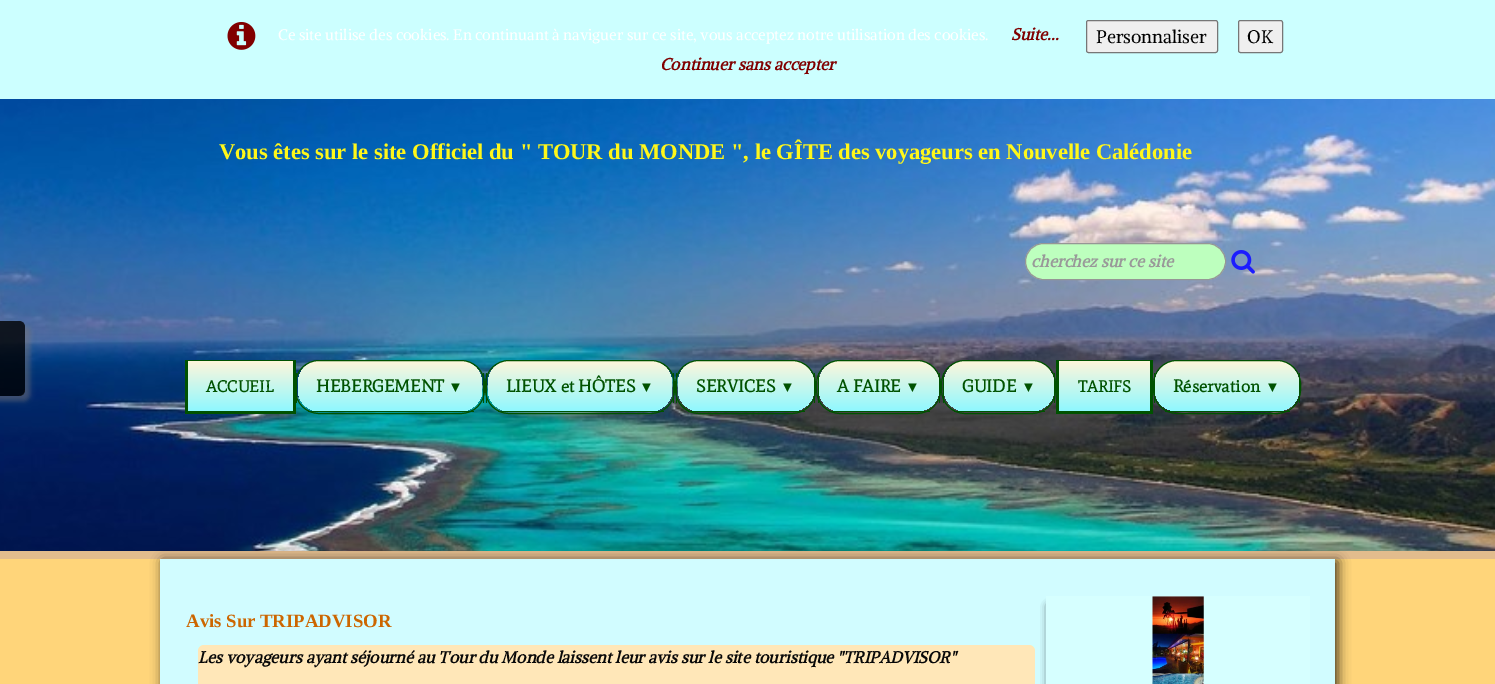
%!PS
<< /PageSize [1495 684] /PageUsesTransparency true >> setpagedevice
/rgb { 3 { 255 div 3 1 roll } repeat setrgbcolor } def
/font { [ exch dup neg 0 0 3 -1 roll 0 0 ] selectfont } def
/text { moveto show } def
/alpha { dup .setfillconstantalpha .setstrokeconstantalpha } def
/roundrect { 5 dict begin { /r /h /w /y /x } { exch def } forall
  x r add y moveto x w add y 2 copy h add r arct x w add y h add x 1 index r arct
  x y h add x y r arct x y 2 copy exch w add exch r arct closepath end } def
/shadow { 12 dict begin { /a /b /q /h /w /y /x } { exch def } forall gsave /was 0 def
  9 -2 -9 { dup b mul 4 div /e exch def 1 sub .425 mul 2.718 exch exp 1 add a .99 .min exch div /now exch def
    1 1 now sub 1 was sub div sub alpha /was now def
    w h .min e 2 mul add 0 gt { x e sub y e sub w e 2 mul add h e 2 mul add
      q e add b .6 mul add w h .min 2 div e add .min 0 .max roundrect fill } if } for grestore end } def
/picture { 5 dict begin { /h /w /y /x /name } { exch def } forall
  gsave x y translate w h scale
  w h 8 [w 0 0 h 0 0] name (r) file false 3 colorimage grestore end } def
0 .pushpdf14devicefilter
0 684 translate 1 -1 scale
4 setmiterlimit
255 213 122 rgb
0 0 1495 684 rectfill
(img_02.rgb) 0 99 1495 452 picture
gsave
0 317 moveto 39 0 rlineto 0 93 rlineto -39 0 rlineto closepath -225 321 moveto 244 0 rlineto 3.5 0 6 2.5 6 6 rcurveto 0 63 rlineto 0 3.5 -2.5 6 -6 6 rcurveto -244 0 rlineto closepath eoclip newpath
121 119 119 rgb
-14 326 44 75 6 2.5 0.51 shadow
grestore
0.8 alpha
0 0 0 rgb
-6 321 moveto 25 0 rlineto 3.5 0 6 2.5 6 6 rcurveto 0 63 rlineto 0 3.5 -2.5 6 -6 6 rcurveto -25 0 rlineto closepath fill
1 alpha
204 255 255 rgb
0 0 1495 99 rectfill
(img_01.rgb) 227 22 29 28 picture
239 239 239 rgb
1086.5 20.5 131 32 2 roundrect gsave fill grestore
118 118 118 rgb
stroke
239 239 239 rgb
1238.5 20.5 44 32 2 roundrect gsave fill grestore
118 118 118 rgb
stroke
226 188 141 rgb
0 551 1495 8 rectfill
189 255 190 rgb
1025.5 243.5 200 36 18 roundrect gsave fill grestore
150 150 150 rgb
stroke
(img_03.rgb) 1231 250 24 24 picture
gsave 188 361 moveto 105 0 rlineto 0 50 rlineto -105 0 rlineto closepath clip newpath
<< /ShadingType 2 /ColorSpace /DeviceRGB /Coords [240 361 240 411] /Extend [true true] /Function << /FunctionType 2 /Domain [0 1] /C0 [1 0.965 0.859] /C1 [0.561 0.973 1] /N 1 >> >> shfill grestore
0 82 0 rgb
185 360 110 1 rectfill
293 360 3 54 rectfill
185 411 110 3 rectfill
185 360 3 54 rectfill
gsave 319 361 moveto 142 0 rlineto 12 0 21 10 21 23 rcurveto 0 6 rlineto 0 12 -9 21 -21 21 rcurveto -142 0 rlineto -12 0 -21 -9 -21 -21 rcurveto 0 -6 rlineto 0 -13 9 -23 21 -23 rcurveto closepath clip newpath
<< /ShadingType 2 /ColorSpace /DeviceRGB /Coords [390 361 390 411] /Extend [true true] /Function << /FunctionType 2 /Domain [0 1] /C0 [1 0.965 0.859] /C1 [0.561 0.973 1] /N 1 >> >> shfill grestore
295.5 360.5 189 53 23.5 roundrect stroke
483 373 1 30 rectfill
308 411 166 1 rectfill
296 373 1 30 rectfill
gsave 509 361 moveto 142 0 rlineto 12 0 21 10 21 23 rcurveto 0 6 rlineto 0 12 -9 21 -21 21 rcurveto -142 0 rlineto -12 0 -21 -9 -21 -21 rcurveto 0 -6 rlineto 0 -13 9 -23 21 -23 rcurveto closepath clip newpath
<< /ShadingType 2 /ColorSpace /DeviceRGB /Coords [580 361 580 411] /Extend [true true] /Function << /FunctionType 2 /Domain [0 1] /C0 [1 0.965 0.859] /C1 [0.561 0.973 1] /N 1 >> >> shfill grestore
485.5 360.5 189 53 23.5 roundrect stroke
673 373 1 30 rectfill
498 411 166 1 rectfill
486 373 1 30 rectfill
gsave 699 361 moveto 93 0 rlineto 12 0 22 10 22 23 rcurveto 0 6 rlineto 0 12 -10 21 -22 21 rcurveto -93 0 rlineto -12 0 -21 -9 -21 -21 rcurveto 0 -6 rlineto 0 -13 9 -23 21 -23 rcurveto closepath clip newpath
<< /ShadingType 2 /ColorSpace /DeviceRGB /Coords [746 361 746 411] /Extend [true true] /Function << /FunctionType 2 /Domain [0 1] /C0 [1 0.965 0.859] /C1 [0.561 0.973 1] /N 1 >> >> shfill grestore
675.5 360.5 140 53 23.5 roundrect stroke
814 373 1 30 rectfill
688 411 117 1 rectfill
676 373 1 30 rectfill
gsave 840 361 moveto 78 0 rlineto 11 0 21 10 21 23 rcurveto 0 6 rlineto 0 12 -10 21 -21 21 rcurveto -78 0 rlineto -12 0 -21 -9 -21 -21 rcurveto 0 -6 rlineto 0 -13 9 -23 21 -23 rcurveto closepath clip newpath
<< /ShadingType 2 /ColorSpace /DeviceRGB /Coords [879 361 879 411] /Extend [true true] /Function << /FunctionType 2 /Domain [0 1] /C0 [1 0.965 0.859] /C1 [0.561 0.973 1] /N 1 >> >> shfill grestore
816.5 360.5 124 53 23.5 roundrect stroke
939 373 1 30 rectfill
829 411 101 1 rectfill
818 373 1 30 rectfill
gsave 965 361 moveto 67 0 rlineto 12 0 22 10 22 23 rcurveto 0 6 rlineto 0 12 -10 21 -22 21 rcurveto -67 0 rlineto -12 0 -21 -9 -21 -21 rcurveto 0 -6 rlineto 0 -13 9 -23 21 -23 rcurveto closepath clip newpath
<< /ShadingType 2 /ColorSpace /DeviceRGB /Coords [999 361 999 411] /Extend [true true] /Function << /FunctionType 2 /Domain [0 1] /C0 [1 0.965 0.859] /C1 [0.561 0.973 1] /N 1 >> >> shfill grestore
941.5 360.5 114 53 23.5 roundrect stroke
1054 373 1 30 rectfill
954 411 91 1 rectfill
943 373 1 30 rectfill
gsave 1059 361 moveto 91 0 rlineto 0 50 rlineto -91 0 rlineto closepath clip newpath
<< /ShadingType 2 /ColorSpace /DeviceRGB /Coords [1104 361 1104 411] /Extend [true true] /Function << /FunctionType 2 /Domain [0 1] /C0 [1 0.965 0.859] /C1 [0.561 0.973 1] /N 1 >> >> shfill grestore
1056 360 97 1 rectfill
1150 360 3 54 rectfill
1056 411 97 3 rectfill
1056 360 3 54 rectfill
gsave 1176 361 moveto 102 0 rlineto 11 0 21 10 21 23 rcurveto 0 6 rlineto 0 12 -10 21 -21 21 rcurveto -102 0 rlineto -11 0 -21 -9 -21 -21 rcurveto 0 -6 rlineto 0 -13 10 -23 21 -23 rcurveto closepath clip newpath
<< /ShadingType 2 /ColorSpace /DeviceRGB /Coords [1227 361 1227 411] /Extend [true true] /Function << /FunctionType 2 /Domain [0 1] /C0 [1 0.965 0.859] /C1 [0.561 0.973 1] /N 1 >> >> shfill grestore
1153.5 360.5 147 53 23.5 roundrect stroke
1299 373 1 30 rectfill
1165 411 125 1 rectfill
1154 373 1 30 rectfill
0 0 0 rgb
163 561 1175 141 0 6 0.75 shadow
209 252 255 rgb
160 559 1175 125 rectfill
204 255 255 rgb
198 645 837 6 rectfill
255 231 184 rgb
198 645 837 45 6 roundrect fill
0 0 0 rgb
1049 606 244 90 0 4 1 shadow
214 255 255 rgb
1046 596 264 88 rectfill
(img_04.rgb) 1152 596 52 88 picture
/AlikeAngular-Regular 15 font
255 255 255 rgb
(Ce site utilise des cookies. En continuant à naviguer sur ce site, vous acceptez notre utilisation des cookies.) 278 40 text
/AlikeAngular-BoldItalic 16.25 font
128 0 0 rgb
(Suite...) 1011 40 text
/AlikeAngular-Regular 18 font
0 0 0 rgb
(Personnaliser) 1096 43 text
(OK) 1247 43 text
/AlikeAngular-BoldItalic 16.25 font
128 0 0 rgb
(Continuer sans accepter) 660 70 text
/LiberationSerif-Bold 22.5 font
255 247 26 rgb
(Vous êtes sur le site Officiel du " TOUR du MONDE ", le GÎTE des voyageurs en Nouvelle Calédonie) 219 159 text
/AlikeAngular-BoldItalic 16.25 font
153 153 153 rgb
(cherchez sur ce site) 1031 267 text
/Mate-Bold 16.25 font
0 82 0 rgb
(ACCUEIL) 206 392 text
/Mate-Bold 17.5 font
(HEBERGEMENT) 316 392 text
/LiberationSerif-Bold 15 font
(▼) 448 392 text
/Mate-Bold 17.5 font
(LIEUX et HÔTES) 506 392 text
/LiberationSerif-Bold 15 font
(▼) 639 392 text
/Mate-Bold 17.5 font
(SERVICES) 696 392 text
/LiberationSerif-Bold 15 font
(▼) 780 392 text
/Mate-Bold 17.5 font
(A FAIRE) 837 392 text
/LiberationSerif-Bold 15 font
(▼) 905 392 text
/Mate-Bold 17.5 font
(GUIDE) 962 392 text
/LiberationSerif-Bold 15 font
(▼) 1021 392 text
/Mate-Bold 16.25 font
(TARIFS) 1078 392 text
/Mate-Bold 17.5 font
(Réservation) 1173 392 text
/LiberationSerif-Bold 15 font
(▼) 1265 392 text
/LiberationSerif-Bold 18.75 font
204 102 0 rgb
(Avis Sur TRIPADVISOR) 186 627 text
/AlikeAngular-BoldItalic 16.25 font
8 8 8 rgb
(Les voyageurs ayant séjourné au Tour du Monde laissent leur avis sur le site touristique "TRIPADVISOR") 198 663 text
.poppdf14devicefilter showpage
